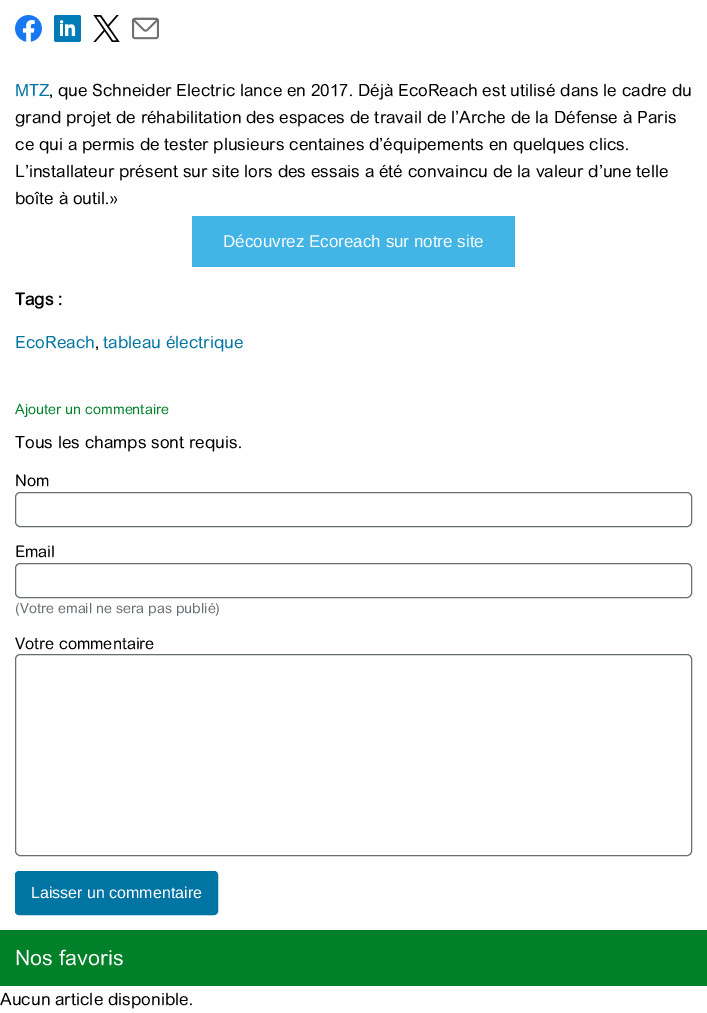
%!PS
<< /PageSize [707 1013] >> setpagedevice
/rgb { 3 { 255 div 3 1 roll } repeat setrgbcolor } def
/font { [ exch dup neg 0 0 3 -1 roll 0 0 ] selectfont } def
/text { moveto show } def
/roundrect { 5 dict begin { /r /h /w /y /x } { exch def } forall
  x r add y moveto x w add y 2 copy h add r arct x w add y h add x 1 index r arct
  x y h add x y r arct x y 2 copy exch w add exch r arct closepath end } def
/picture { 5 dict begin { /h /w /y /x /name } { exch def } forall
  gsave x y translate w h scale
  w h 8 [w 0 0 h 0 0] name (r) file false 3 colorimage grestore end } def
0 1013 translate 1 -1 scale
4 setmiterlimit
255 255 255 rgb
0 0 707 1013 rectfill
(img_01.rgb) 15 15 27 27 picture
(img_02.rgb) 54 15 27 27 picture
(img_03.rgb) 93 15 27 27 picture
(img_04.rgb) 132 17 27 23 picture
66 180 230 rgb
192 216 323 51 rectfill
103 111 115 rgb
15.5 492.5 676 34 4.5 roundrect stroke
15.5 563.5 676 34 4.5 roundrect stroke
15.5 654.5 676 201 4.5 roundrect stroke
0 117 163 rgb
15.5 871.5 202 43 3.5 roundrect gsave fill grestore
stroke
0 128 41 rgb
0 930 707 56 rectfill
/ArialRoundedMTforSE-Regular 16.9 font
0 117 163 rgb
(MTZ) 15 96 text
0 0 0 rgb
(, que Schneider Electric lance en 2017. Déjà EcoReach est utilisé dans le cadre du) 49 96 text
(grand projet de réhabilitation des espaces de travail de l’Arche de la Défense à Paris) 15 123 text
(ce qui a permis de tester plusieurs centaines d’équipements en quelques clics.) 15 150 text
(L’installateur présent sur site lors des essais a été convaincu de la valeur d’une telle) 15 177 text
(boîte à outil.») 15 204 text
/LiberationSans-Regular 17 font
255 255 255 rgb
(Découvrez Ecoreach sur notre site) 223 247 text
/ArialRoundedMTforSE-Bold 16.9 font
0 0 0 rgb
(Tags :) 15 305 text
/ArialRoundedMTforSE-Regular 16.9 font
0 117 163 rgb
(EcoReach) 15 348 text
0 0 0 rgb
(,) 95 348 text
0 117 163 rgb
(tableau électrique) 103 348 text
/ArialRoundedMTforSE-Regular 14 font
0 128 41 rgb
(Ajouter un commentaire) 15 414 text
/ArialRoundedMTforSE-Regular 16.9 font
0 0 0 rgb
(Tous les champs sont requis.) 15 448 text
/ArialRoundedMTforSE-Regular 16 font
(Nom) 15 486 text
(Email) 15 557 text
/ArialRoundedMTforSE-Regular 14 font
103 111 115 rgb
(\(Votre email ne sera pas publié\)) 15 613 text
/ArialRoundedMTforSE-Regular 16 font
0 0 0 rgb
(Votre commentaire) 15 649 text
/LiberationSans-Regular 16 font
255 255 255 rgb
(Laisser un commentaire) 31 898 text
/ArialRoundedMTforSE-Regular 21 font
(Nos favoris) 15 965 text
/ArialRoundedMTforSE-Regular 16.9 font
0 0 0 rgb
(Aucun article disponible.) 0 1005 text
showpage
